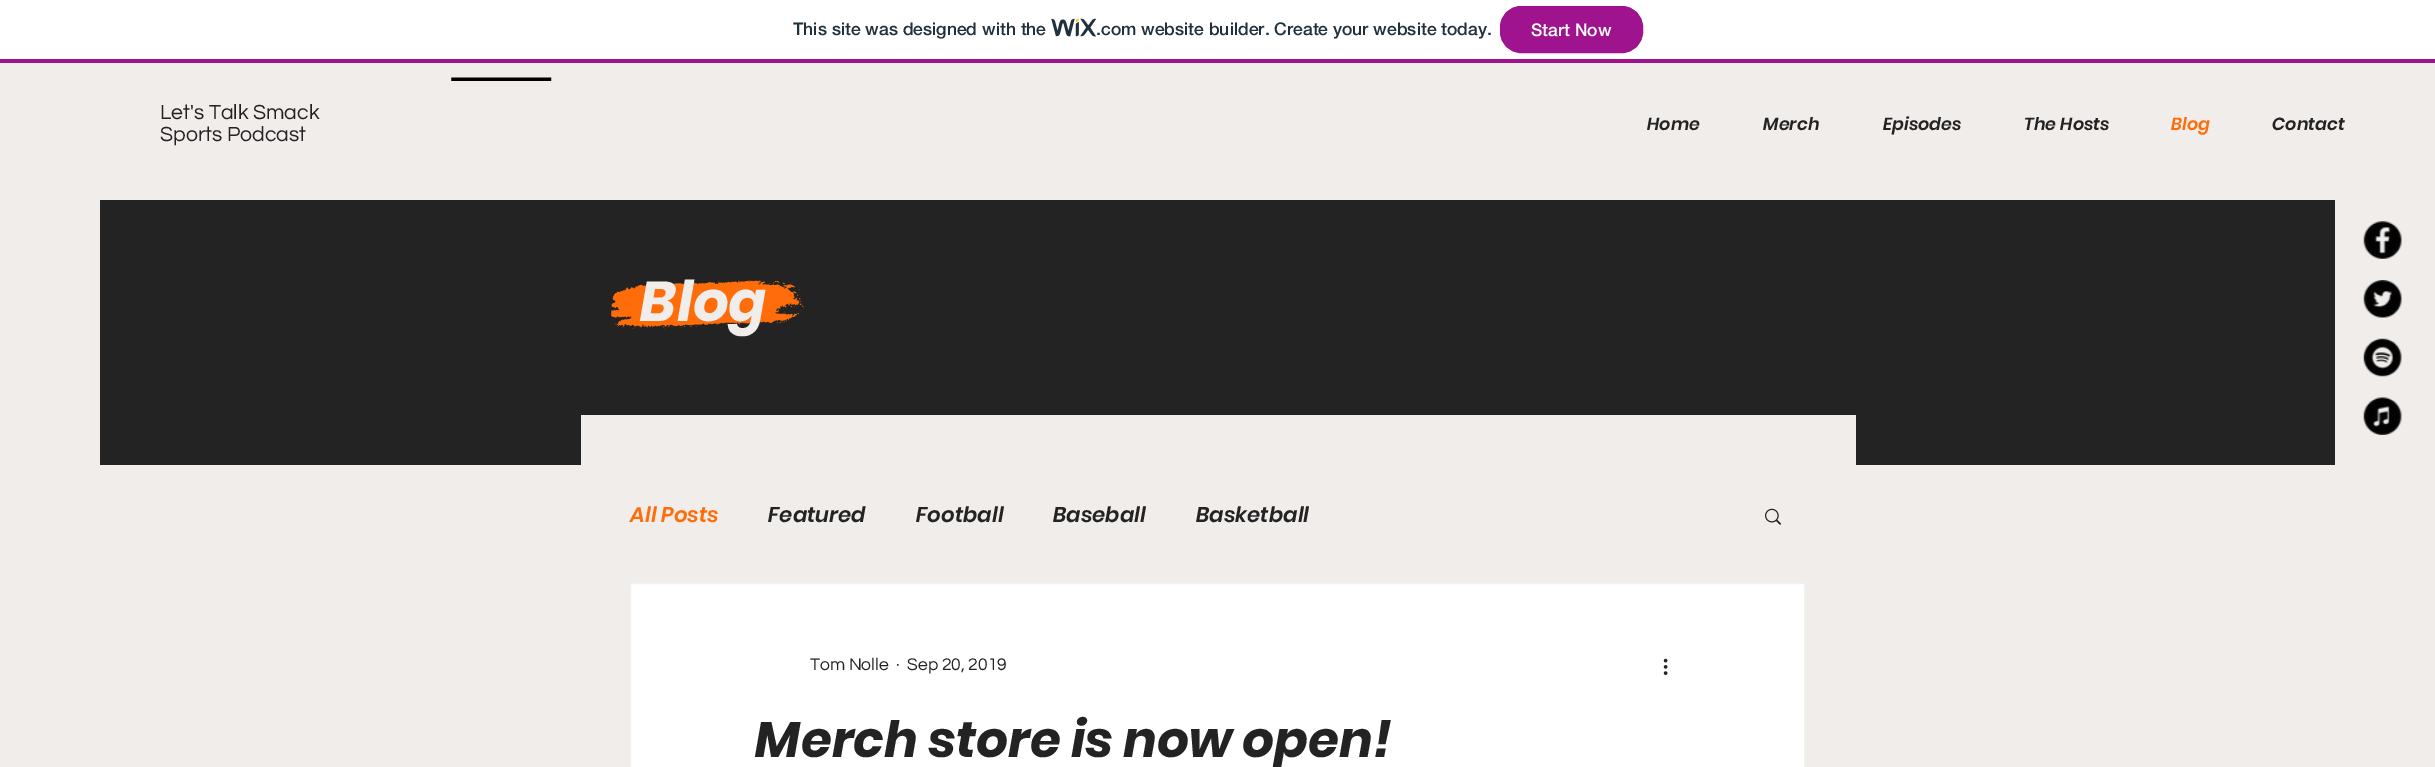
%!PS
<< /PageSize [2435 767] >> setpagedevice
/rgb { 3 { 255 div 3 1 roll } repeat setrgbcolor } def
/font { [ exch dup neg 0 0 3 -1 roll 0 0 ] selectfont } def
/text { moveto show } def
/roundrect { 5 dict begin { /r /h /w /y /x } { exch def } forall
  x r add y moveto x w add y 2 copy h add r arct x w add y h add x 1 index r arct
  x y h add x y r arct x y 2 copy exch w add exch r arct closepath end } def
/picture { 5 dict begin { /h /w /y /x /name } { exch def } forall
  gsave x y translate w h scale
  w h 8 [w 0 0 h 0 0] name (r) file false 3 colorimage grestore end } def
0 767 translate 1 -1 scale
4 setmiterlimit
255 255 255 rgb
0 0 2435 767 rectfill
160 19 142 rgb
0 59 2435 4 rectfill
(img_01.rgb) 1051 18 45 19 picture
1500.5 6.5 142 46 20.5 roundrect gsave fill grestore
stroke
240 237 235 rgb
0 63 2435 704 rectfill
(img_02.rgb) 451 77 101 4 picture
36 35 35 rgb
100 200 2235 265 rectfill
(img_03.rgb) 611 280 193 50 picture
240 237 235 rgb
581 415 1275 50 rectfill
(img_04.rgb) 1765 508 17 17 picture
255 255 255 rgb
630.5 583.5 moveto 1174 0 rlineto 0 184 rlineto -1174 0 rlineto closepath gsave fill grestore
244 242 240 rgb
stroke
(img_05.rgb) 1663 658 5 17 picture
(img_06.rgb) 2363 221 39 38 picture
(img_07.rgb) 2363 280 39 38 picture
(img_08.rgb) 2363 338 39 39 picture
(img_09.rgb) 2363 397 39 38 picture
/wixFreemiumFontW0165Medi-Medium 17.5 font
32 48 60 rgb
(This site was designed with the) 793 35 text
(.com website builder. Create your website today.) 1096 35 text
255 255 255 rgb
(Start Now) 1531 36 text
/Questrial-Regular 21.25 font
36 35 35 rgb
(Let's Talk Smack) 160 119 text
(Sports Podcast) 160 141 text
/Poppins-SemiBoldItalic 17.5 font
(Home) 1647 130 text
(Merch) 1763 130 text
(Episodes) 1883 130 text
(The Hosts) 2024 130 text
255 109 11 rgb
(Blog) 2171 130 text
36 35 35 rgb
(Contact) 2272 130 text
/Poppins-BoldItalic 56 font
240 237 235 rgb
(Blog) 640 321 text
/Poppins-SemiBoldItalic 21.25 font
255 109 11 rgb
(All Posts) 630 522 text
36 35 35 rgb
(Featured) 768 522 text
(Football) 916 522 text
(Baseball) 1053 522 text
(Basketball) 1196 522 text
/Questrial-Regular 17.5 font
(Tom Nolle) 810 670 text
(·) 896 670 text
(Sep 20, 2019) 907 670 text
/Poppins-BoldItalic 50 font
(Merch store is now open!) 755 757 text
showpage
